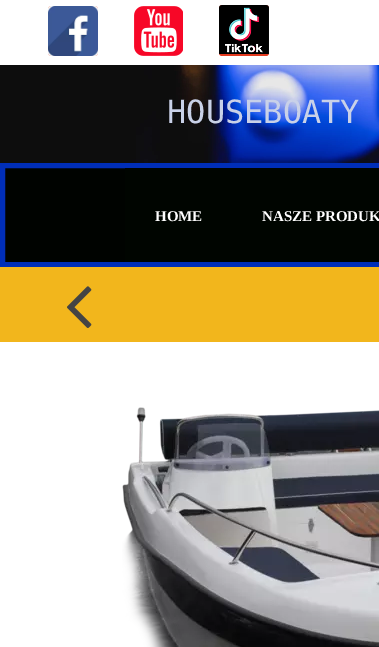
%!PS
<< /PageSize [379 647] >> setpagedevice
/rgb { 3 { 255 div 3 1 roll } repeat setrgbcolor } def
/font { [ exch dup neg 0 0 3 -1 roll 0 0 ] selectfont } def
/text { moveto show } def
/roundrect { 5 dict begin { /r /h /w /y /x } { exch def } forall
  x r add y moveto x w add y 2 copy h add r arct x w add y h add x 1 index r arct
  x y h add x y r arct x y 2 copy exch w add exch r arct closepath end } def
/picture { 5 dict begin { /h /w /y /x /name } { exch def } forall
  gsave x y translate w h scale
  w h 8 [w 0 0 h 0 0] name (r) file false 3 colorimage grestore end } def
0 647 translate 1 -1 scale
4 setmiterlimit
255 255 255 rgb
0 0 379 647 rectfill
(img_01.rgb) 48 6 50 50 picture
(img_02.rgb) 134 6 49 50 picture
228 58 31 rgb
219 5 50 51 3 roundrect fill
(img_03.rgb) 219 5 50 49 picture
(img_04.rgb) 0 65 379 98 picture
0 3 0 rgb
5 168 120 94 rectfill
0 46 184 rgb
5 setlinewidth
2.5 165.5 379 99 rectstroke
0 5 0 rgb
125 168 254 94 rectfill
242 182 28 rgb
0 267 379 75 rectfill
(img_05.rgb) 67 286 25 42 picture
(img_06.rgb) 122 407 257 240 picture
/DejaVuSansMono-Regular 32 font
201 209 232 rgb
(HOUSEBOATY) 167 123 text
/LiberationSerif-Bold 15 font
255 255 255 rgb
(HOME) 155 221 text
(NASZE PRODUK) 262 221 text
showpage
